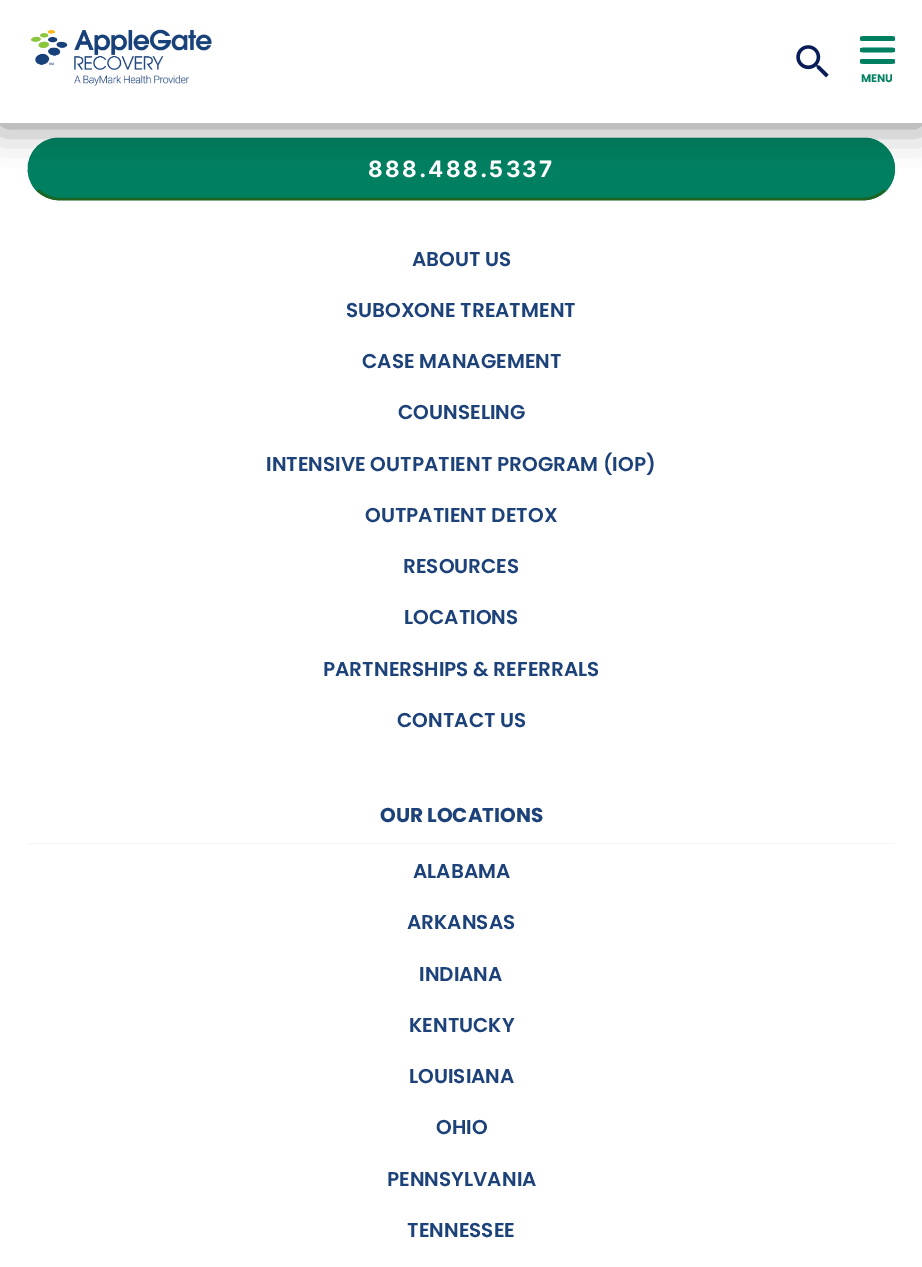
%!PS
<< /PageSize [922 1267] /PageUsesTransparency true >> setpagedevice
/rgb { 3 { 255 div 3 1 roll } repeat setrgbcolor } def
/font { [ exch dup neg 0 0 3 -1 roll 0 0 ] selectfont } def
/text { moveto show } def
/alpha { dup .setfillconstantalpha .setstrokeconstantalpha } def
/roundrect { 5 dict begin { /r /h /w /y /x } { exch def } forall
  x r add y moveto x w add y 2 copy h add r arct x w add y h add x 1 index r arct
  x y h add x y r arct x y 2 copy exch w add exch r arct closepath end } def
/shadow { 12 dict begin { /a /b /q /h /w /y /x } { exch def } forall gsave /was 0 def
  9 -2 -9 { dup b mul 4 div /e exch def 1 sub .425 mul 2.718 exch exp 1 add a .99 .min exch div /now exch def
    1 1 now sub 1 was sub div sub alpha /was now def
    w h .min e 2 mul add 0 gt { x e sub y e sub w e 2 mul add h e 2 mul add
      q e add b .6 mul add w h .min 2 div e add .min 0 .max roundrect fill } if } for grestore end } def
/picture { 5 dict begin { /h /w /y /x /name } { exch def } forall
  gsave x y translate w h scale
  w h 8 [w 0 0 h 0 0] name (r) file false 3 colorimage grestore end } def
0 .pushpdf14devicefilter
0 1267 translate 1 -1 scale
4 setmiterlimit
255 255 255 rgb
0 0 922 1267 rectfill
0 128 97 rgb
28 138 867 62 31 roundrect fill
29 100 32 rgb
2.5 setlinewidth
885 190 moveto -5.5 5.5 -13.5 9 -21 9 rcurveto -805 0 rlineto -8 0 -16 -3.5 -21.5 -9 rcurveto stroke
0 128 97 rgb
37.5 190 moveto -14 -14 -10.5 -38.5 7 -47.5 rcurveto 4.5 -2.5 9.5 -3.5 14 -3.5 rcurveto 805.5 0 rlineto 3.5 0 7.5 0.5 11 2 rcurveto 19.5 8 25 34 10 49 rcurveto stroke
0 0 0 rgb
0 3 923 122 0 19 0.5 shadow
255 255 255 rgb
0 0 922 123 rectfill
(img_01.rgb) 30 29 182 57 picture
(img_02.rgb) 796 45 33 33 picture
0 128 97 rgb
867 36 moveto 21 0 rlineto 4 0 7 0.5 7 1 rcurveto 0 3 rlineto 0 1 -3 1 -7 1 rcurveto -21 0 rlineto -4 0 -7 0 -7 -1 rcurveto 0 -3 rlineto 0 -0.5 3 -1 7 -1 rcurveto closepath 867 47.5 moveto 21 0 rlineto 4 0 7 0.5 7 1 rcurveto 0 3 rlineto 0 0.5 -3 1 -7 1 rcurveto -21 0 rlineto -4 0 -7 -0.5 -7 -1 rcurveto 0 -3 rlineto 0 -0.5 3 -1 7 -1 rcurveto closepath 867 59 moveto 21 0 rlineto 4 0 7 0 7 1 rcurveto 0 3 rlineto 0 0.5 -3 1 -7 1 rcurveto -21 0 rlineto -4 0 -7 -0.5 -7 -1 rcurveto 0 -3 rlineto 0 -1 3 -1 7 -1 rcurveto closepath fill
244 245 247 rgb
28 843 867 1 rectfill
/Poppins-Bold 11 font
0 128 97 rgb
(MENU) 861 82 text
/Inter-Bold 22.5 font
255 255 255 rgb
368 177 moveto 2.25 0 (888.488.5337) ashow
/Poppins-SemiBold 20 font
28 66 121 rgb
(ABOUT US) 412 266 text
(SUBOXONE TREATMENT) 346 317 text
(CASE MANAGEMENT) 362 368 text
(COUNSELING) 398 419 text
(INTENSIVE OUTPATIENT PROGRAM \(IOP\)) 266 471 text
(OUTPATIENT DETOX) 365 522 text
(RESOURCES) 403 573 text
(LOCATIONS) 404 624 text
(PARTNERSHIPS & REFERRALS) 323 676 text
(CONTACT US) 397 727 text
/Poppins-Bold 20 font
(OUR LOCATIONS) 380 822 text
/Poppins-SemiBold 20 font
(ALABAMA) 413 878 text
(ARKANSAS) 407 929 text
(INDIANA) 419 981 text
(KENTUCKY) 409 1032 text
(LOUISIANA) 409 1083 text
(OHIO) 436 1134 text
(PENNSYLVANIA) 387 1186 text
(TENNESSEE) 407 1237 text
.poppdf14devicefilter showpage
